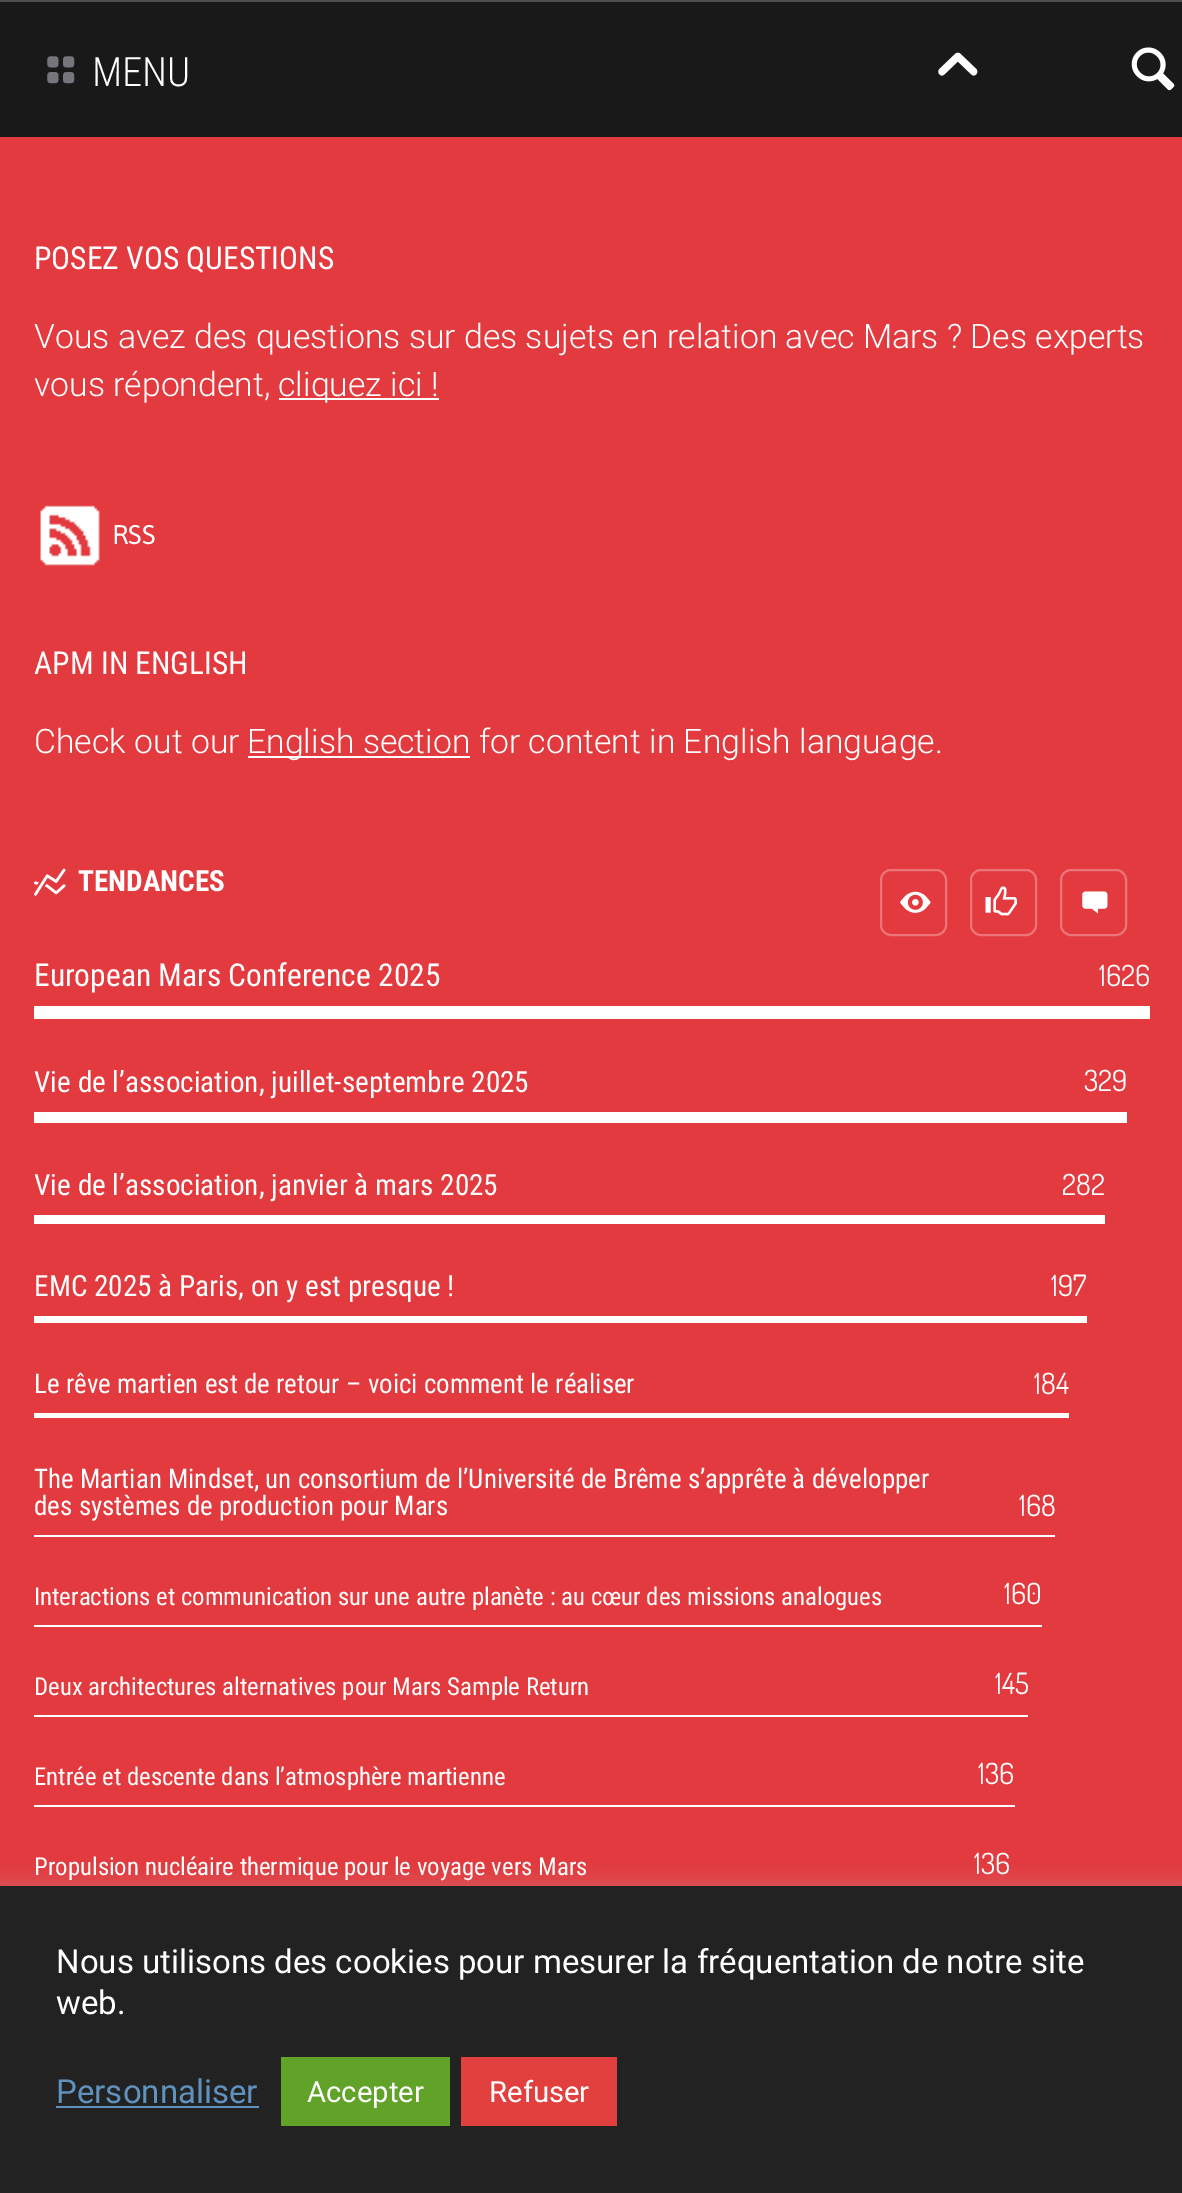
%!PS
<< /PageSize [1182 2193] /PageUsesTransparency true >> setpagedevice
/rgb { 3 { 255 div 3 1 roll } repeat setrgbcolor } def
/font { [ exch dup neg 0 0 3 -1 roll 0 0 ] selectfont } def
/text { moveto show } def
/alpha { dup .setfillconstantalpha .setstrokeconstantalpha } def
/roundrect { 5 dict begin { /r /h /w /y /x } { exch def } forall
  x r add y moveto x w add y 2 copy h add r arct x w add y h add x 1 index r arct
  x y h add x y r arct x y 2 copy exch w add exch r arct closepath end } def
/shadow { 12 dict begin { /a /b /q /h /w /y /x } { exch def } forall gsave /was 0 def
  9 -2 -9 { dup b mul 4 div /e exch def 1 sub .425 mul 2.718 exch exp 1 add a .99 .min exch div /now exch def
    1 1 now sub 1 was sub div sub alpha /was now def
    w h .min e 2 mul add 0 gt { x e sub y e sub w e 2 mul add h e 2 mul add
      q e add b .6 mul add w h .min 2 div e add .min 0 .max roundrect fill } if } for grestore end } def
/picture { 5 dict begin { /h /w /y /x /name } { exch def } forall
  gsave x y translate w h scale
  w h 8 [w 0 0 h 0 0] name (r) file false 3 colorimage grestore end } def
0 .pushpdf14devicefilter
0 2193 translate 1 -1 scale
4 setmiterlimit
226 58 62 rgb
0 0 1182 2193 rectfill
25 25 26 rgb
0 2 1182 135 rectfill
77 77 82 rgb
0 0 1182 2 rectfill
(img_01.rgb) 47 56 28 28 picture
(img_02.rgb) 938 52 40 24 picture
(img_03.rgb) 1131 47 44 44 picture
255 255 255 rgb
279 398 160 2 rectfill
(img_04.rgb) 40 505 60 61 picture
248 756 222 2 rectfill
(img_05.rgb) 34 868 32 28 picture
235 117 120 rgb
2 setlinewidth
881 870 65 65 10 roundrect stroke
(img_06.rgb) 900 891 31 22 picture
971 870 65 65 10 roundrect stroke
(img_07.rgb) 985 886 32 30 picture
1061 870 65 65 10 roundrect stroke
(img_08.rgb) 1082 891 26 23 picture
255 255 255 rgb
34 1006 1116 13 rectfill
34 1112 1093 11 rectfill
34 1215 1071 9 rectfill
34 1316 1053 7 rectfill
34 1413 1035 5 rectfill
34 1535 1021 2 rectfill
34 1625 1008 2 rectfill
34 1715 994 2 rectfill
34 1805 981 2 rectfill
172 171 171 rgb
0 1883 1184 309 0 11 0.3 shadow
34 34 34 rgb
0 1886 1182 307 rectfill
95 146 191 rgb
56 2106 203 2 rectfill
97 162 41 rgb
281 2057 169 69 rectfill
226 63 63 rgb
461 2057 156 69 rectfill
/RobotoCondensed-Light 40.5 font
255 255 255 rgb
(MENU) 92 86 text
/RobotoCondensed-Regular 31.5 font
(POSEZ VOS QUESTIONS) 34 269 text
/Roboto-Light 33.75 font
(Vous avez des questions sur des sujets en relation avec Mars ? Des experts) 34 348 text
(vous répondent,) 34 396 text
(cliquez ici !) 278 396 text
/Asap-Regular 27 font
(RSS) 112 544 text
/RobotoCondensed-Regular 31.5 font
(APM IN ENGLISH) 34 674 text
/Roboto-Light 33.75 font
(Check out our) 34 753 text
(English section for content in English language.) 247 753 text
/RobotoCondensed-Bold 29.25 font
(TENDANCES) 78 891 text
/RobotoCondensed-Regular 31.5 font
(European Mars Conference 2025) 34 986 text
/Dosis-Regular 29.25 font
(1626) 1099 986 text
/RobotoCondensed-Regular 29.25 font
(Vie de l’association, juillet-septembre 2025) 34 1092 text
/Dosis-Regular 29.25 font
(329) 1084 1091 text
/RobotoCondensed-Regular 29.25 font
(Vie de l’association, janvier à mars 2025) 34 1195 text
/Dosis-Regular 29.25 font
(282) 1062 1195 text
/RobotoCondensed-Regular 29.25 font
(EMC 2025 à Paris, on y est presque !) 34 1296 text
/Dosis-Regular 29.25 font
(197) 1051 1296 text
/RobotoCondensed-Regular 27 font
(Le rêve martien est de retour – voici comment le réaliser) 34 1393 text
/Dosis-Regular 29.25 font
(184) 1034 1394 text
/RobotoCondensed-Regular 27 font
(The Martian Mindset, un consortium de l’Université de Brême s’apprête à développer) 34 1488 text
(des systèmes de production pour Mars) 34 1515 text
/Dosis-Regular 29.25 font
(168) 1019 1516 text
/RobotoCondensed-Regular 24.75 font
(Interactions et communication sur une autre planète : au cœur des missions analogues) 34 1605 text
/Dosis-Regular 29.25 font
(160) 1004 1604 text
/RobotoCondensed-Regular 24.75 font
(Deux architectures alternatives pour Mars Sample Return) 34 1695 text
/Dosis-Regular 29.25 font
(145) 995 1694 text
/RobotoCondensed-Regular 24.75 font
(Entrée et descente dans l’atmosphère martienne) 34 1785 text
/Dosis-Regular 29.25 font
(136) 978 1784 text
/RobotoCondensed-Regular 24.75 font
(Propulsion nucléaire thermique pour le voyage vers Mars) 34 1875 text
/Dosis-Regular 29.25 font
(136) 974 1874 text
/Roboto-Regular 33 font
(Nous utilisons des cookies pour mesurer la fréquentation de notre site) 56 1973 text
(web.) 56 2014 text
95 146 191 rgb
(Personnaliser) 56 2103 text
/Roboto-Regular 29.25 font
255 255 255 rgb
(Accepter) 307 2102 text
(Refuser) 489 2102 text
.poppdf14devicefilter showpage
